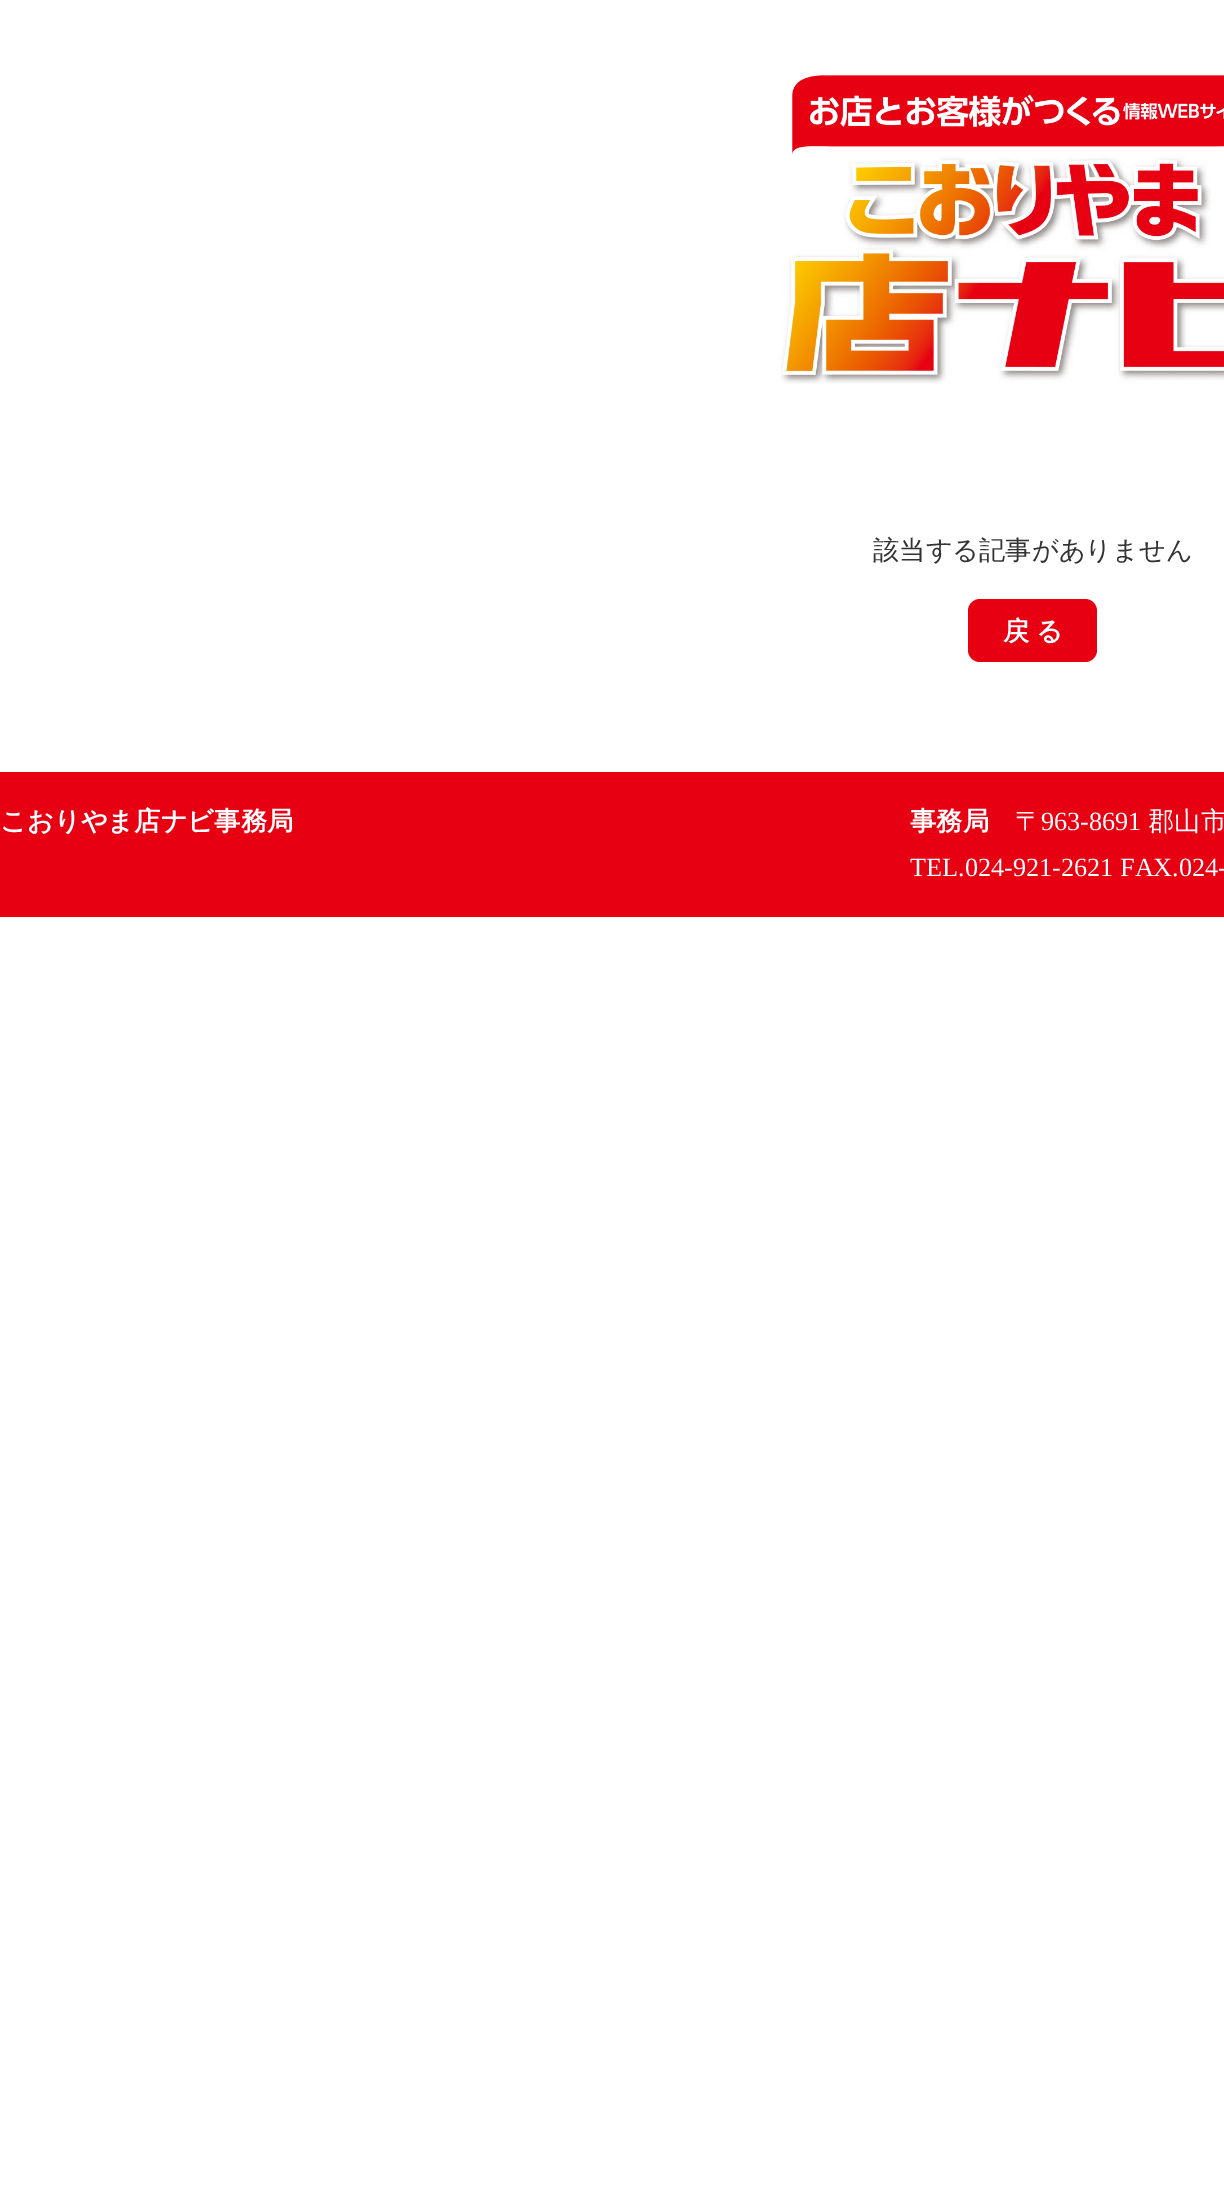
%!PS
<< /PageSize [1224 2194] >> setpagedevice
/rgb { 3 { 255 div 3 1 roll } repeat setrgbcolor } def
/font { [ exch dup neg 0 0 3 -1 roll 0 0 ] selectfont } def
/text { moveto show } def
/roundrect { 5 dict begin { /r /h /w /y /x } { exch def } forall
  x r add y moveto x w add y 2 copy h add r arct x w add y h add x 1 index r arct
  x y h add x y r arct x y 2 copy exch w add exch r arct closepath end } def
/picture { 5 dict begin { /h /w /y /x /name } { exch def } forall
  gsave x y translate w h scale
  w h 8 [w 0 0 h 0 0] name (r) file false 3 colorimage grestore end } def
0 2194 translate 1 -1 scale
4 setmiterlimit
255 255 255 rgb
0 0 1224 2194 rectfill
(img_01.rgb) 780 75 444 309 picture
230 0 18 rgb
968 599 129 63 12 roundrect fill
0 772 1224 145 rectfill
/WenQuanYiZenHei-Medium 26.25 font
51 51 51 rgb
(該当する記事がありません) 873 559 text
/WenQuanYiZenHei-Bold 26.25 font
255 255 255 rgb
1003 640 moveto -1 0 32 (戻 る) widthshow
(こおりやま店ナビ事務局) 0 830 text
(事務局) 910 830 text
/WenQuanYiZenHei-Medium 26.25 font
(〒) 1015 830 text
/LiberationSerif-Regular 26.25 font
(963-8691) 1041 830 text
/WenQuanYiZenHei-Medium 26.25 font
(郡山市) 1148 830 text
/LiberationSerif-Regular 26.25 font
(TEL.024-921-2621 FAX.024-) 910 876 text
showpage
